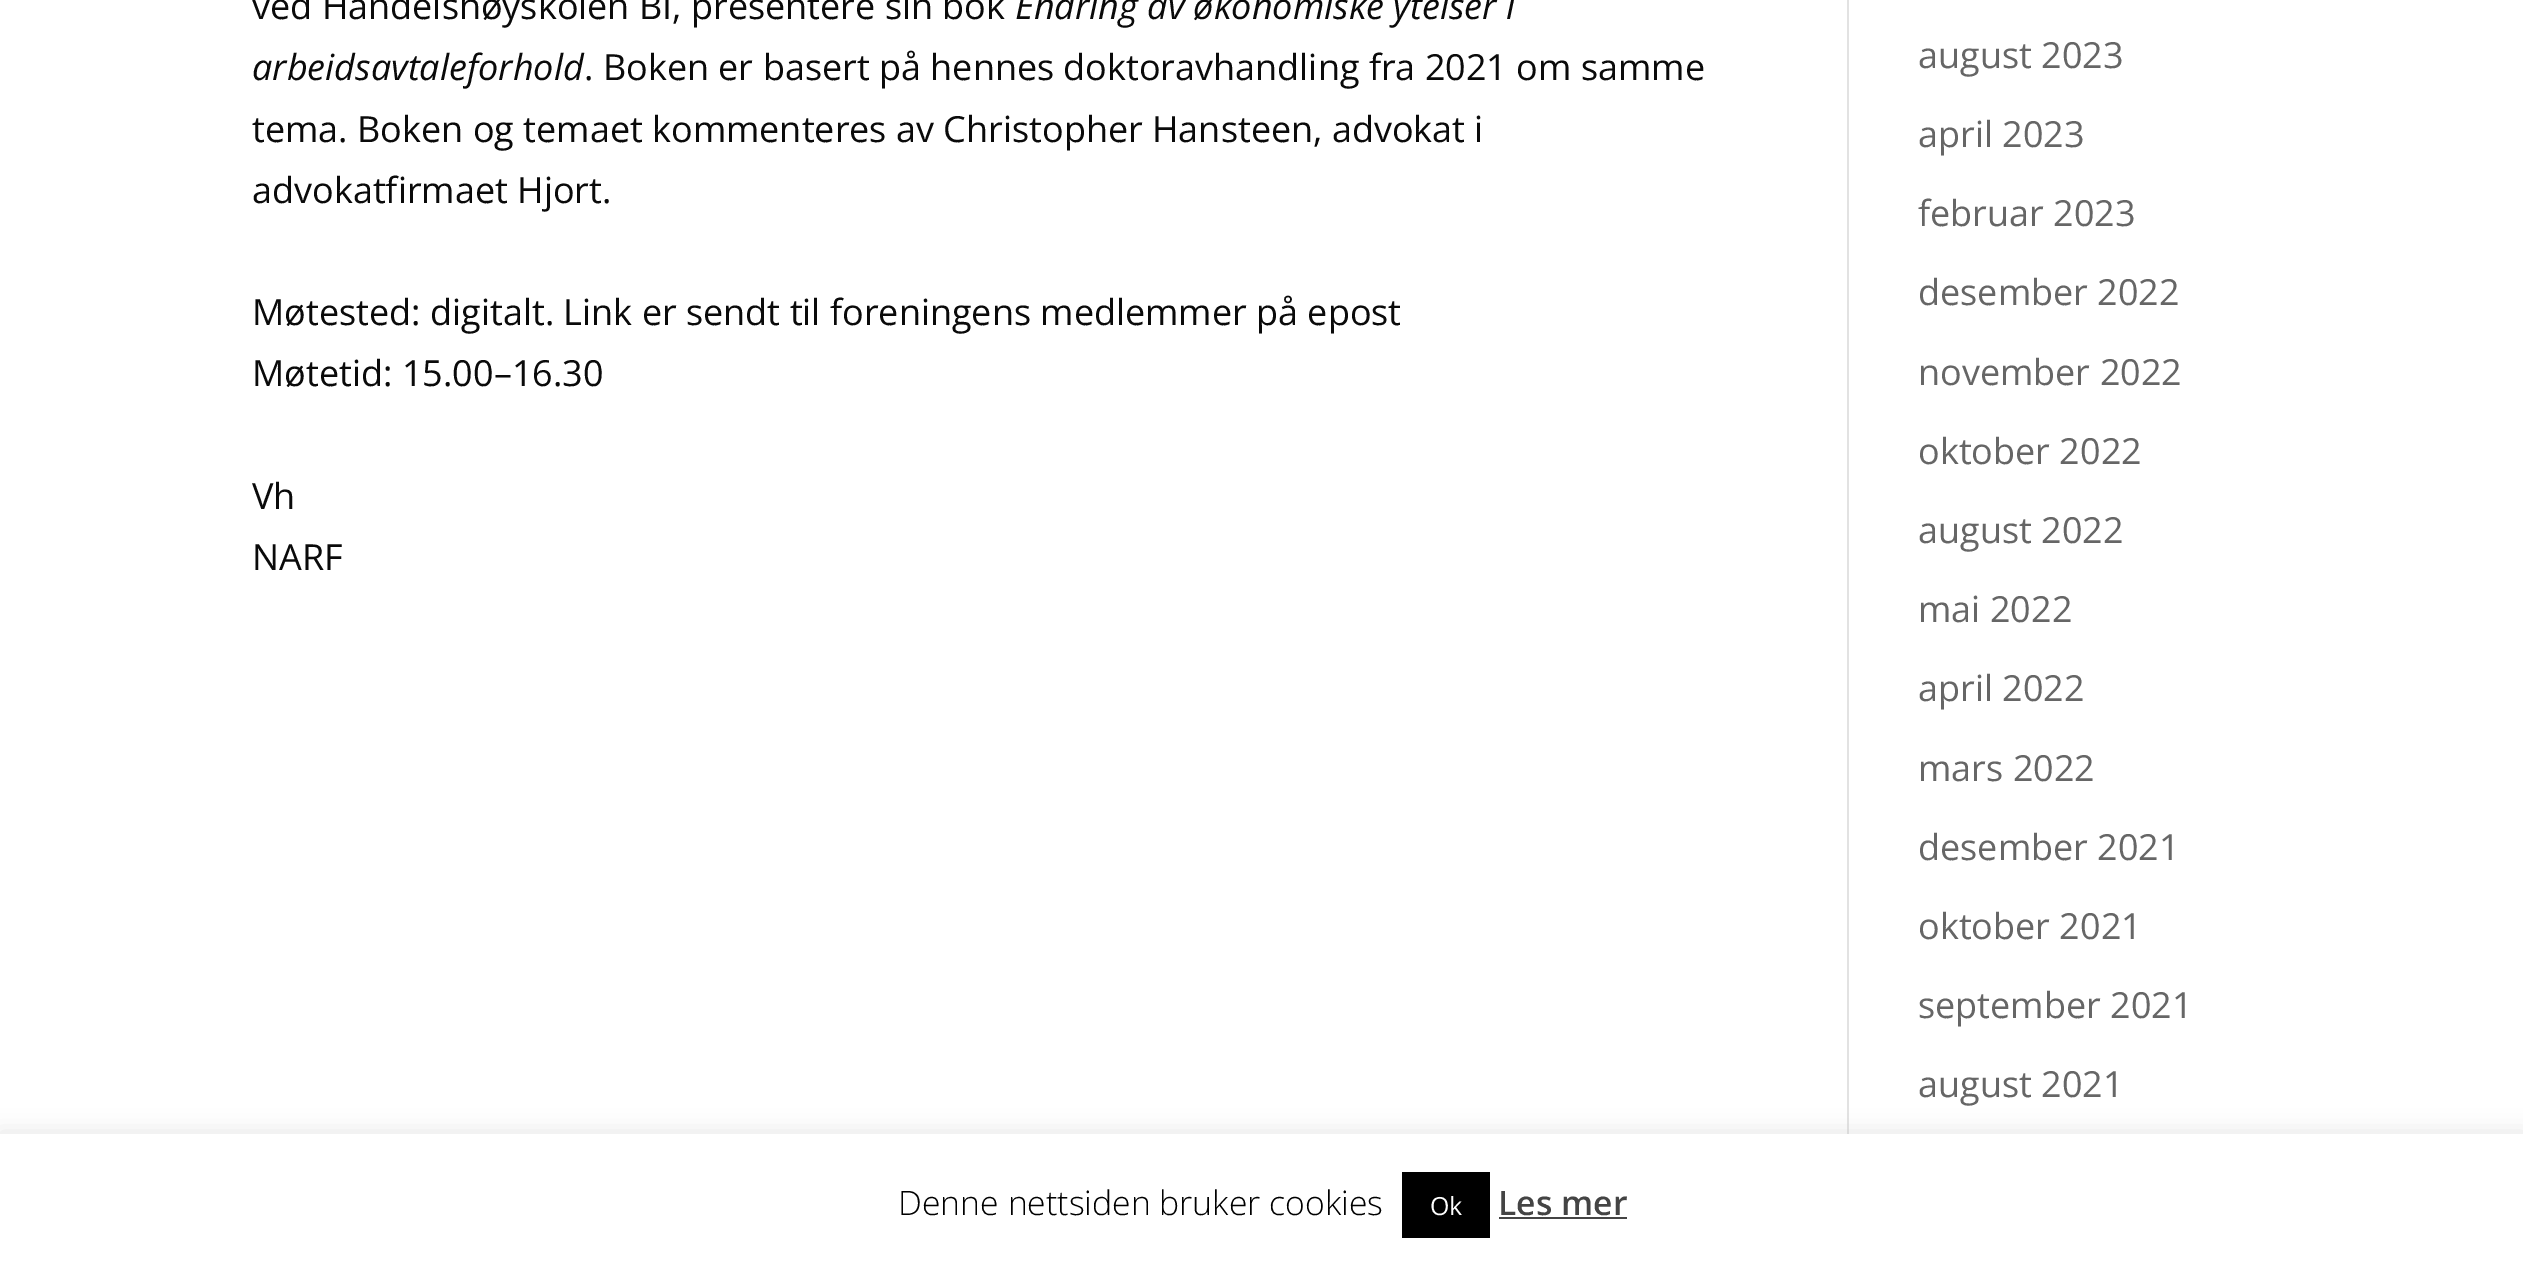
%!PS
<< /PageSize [2523 1264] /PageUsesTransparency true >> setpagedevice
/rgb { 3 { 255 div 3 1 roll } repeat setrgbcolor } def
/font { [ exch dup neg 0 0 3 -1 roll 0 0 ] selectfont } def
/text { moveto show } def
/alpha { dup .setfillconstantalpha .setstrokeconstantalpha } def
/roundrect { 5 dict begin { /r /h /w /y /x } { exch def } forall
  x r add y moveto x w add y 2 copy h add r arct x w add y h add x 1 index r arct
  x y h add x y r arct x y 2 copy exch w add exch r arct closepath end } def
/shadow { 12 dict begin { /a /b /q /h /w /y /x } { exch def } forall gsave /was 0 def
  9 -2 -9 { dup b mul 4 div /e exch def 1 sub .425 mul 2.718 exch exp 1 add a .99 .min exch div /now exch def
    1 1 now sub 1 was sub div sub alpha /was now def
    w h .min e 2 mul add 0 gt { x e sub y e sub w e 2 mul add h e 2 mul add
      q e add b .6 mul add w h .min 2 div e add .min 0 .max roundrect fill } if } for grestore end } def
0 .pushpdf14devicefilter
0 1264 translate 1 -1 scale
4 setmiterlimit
255 255 255 rgb
0 0 2523 1264 rectfill
226 226 226 rgb
1847 0 2 1134 rectfill
172 171 171 rgb
0 1132 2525 130 0 11 0.3 shadow
255 255 255 rgb
0 1134 2523 130 rectfill
0 0 0 rgb
1402 1172 88 66 rectfill
68 68 68 rgb
1499 1217 128 2 rectfill
/OpenSans-Regular 36 font
10 10 10 rgb
(ved Handelshøyskolen BI, presentere sin bok) 252 19 text
/OpenSans-Italic 36 font
(Endring av økonomiske ytelser i) 1015 19 text
(arbeidsavtaleforhold) 252 80 text
/OpenSans-Regular 36 font
(. Boken er basert på hennes doktoravhandling fra 2021 om samme) 584 80 text
(tema. Boken og temaet kommenteres av Christopher Hansteen, advokat i) 252 142 text
(advokatfirmaet Hjort.) 252 203 text
(Møtested: digitalt. Link er sendt til foreningens medlemmer på epost) 252 325 text
(Møtetid: 15.00–16.30) 252 386 text
(Vh) 252 509 text
(NARF) 252 570 text
102 102 102 rgb
(august 2023) 1918 68 text
(april 2023) 1918 147 text
(februar 2023) 1918 226 text
(desember 2022) 1918 305 text
(november 2022) 1918 385 text
(oktober 2022) 1918 464 text
(august 2022) 1918 543 text
(mai 2022) 1918 622 text
(april 2022) 1918 701 text
(mars 2022) 1918 781 text
(desember 2021) 1918 860 text
(oktober 2021) 1918 939 text
(september 2021) 1918 1018 text
(august 2021) 1918 1097 text
/OpenSans-Light 33.75 font
0 0 0 rgb
(Denne nettsiden bruker cookies) 898 1215 text
/OpenSans-Regular 25 font
255 255 255 rgb
(Ok) 1430 1215 text
/OpenSans-SemiBold 33.75 font
68 68 68 rgb
(Les mer) 1498 1215 text
.poppdf14devicefilter showpage
